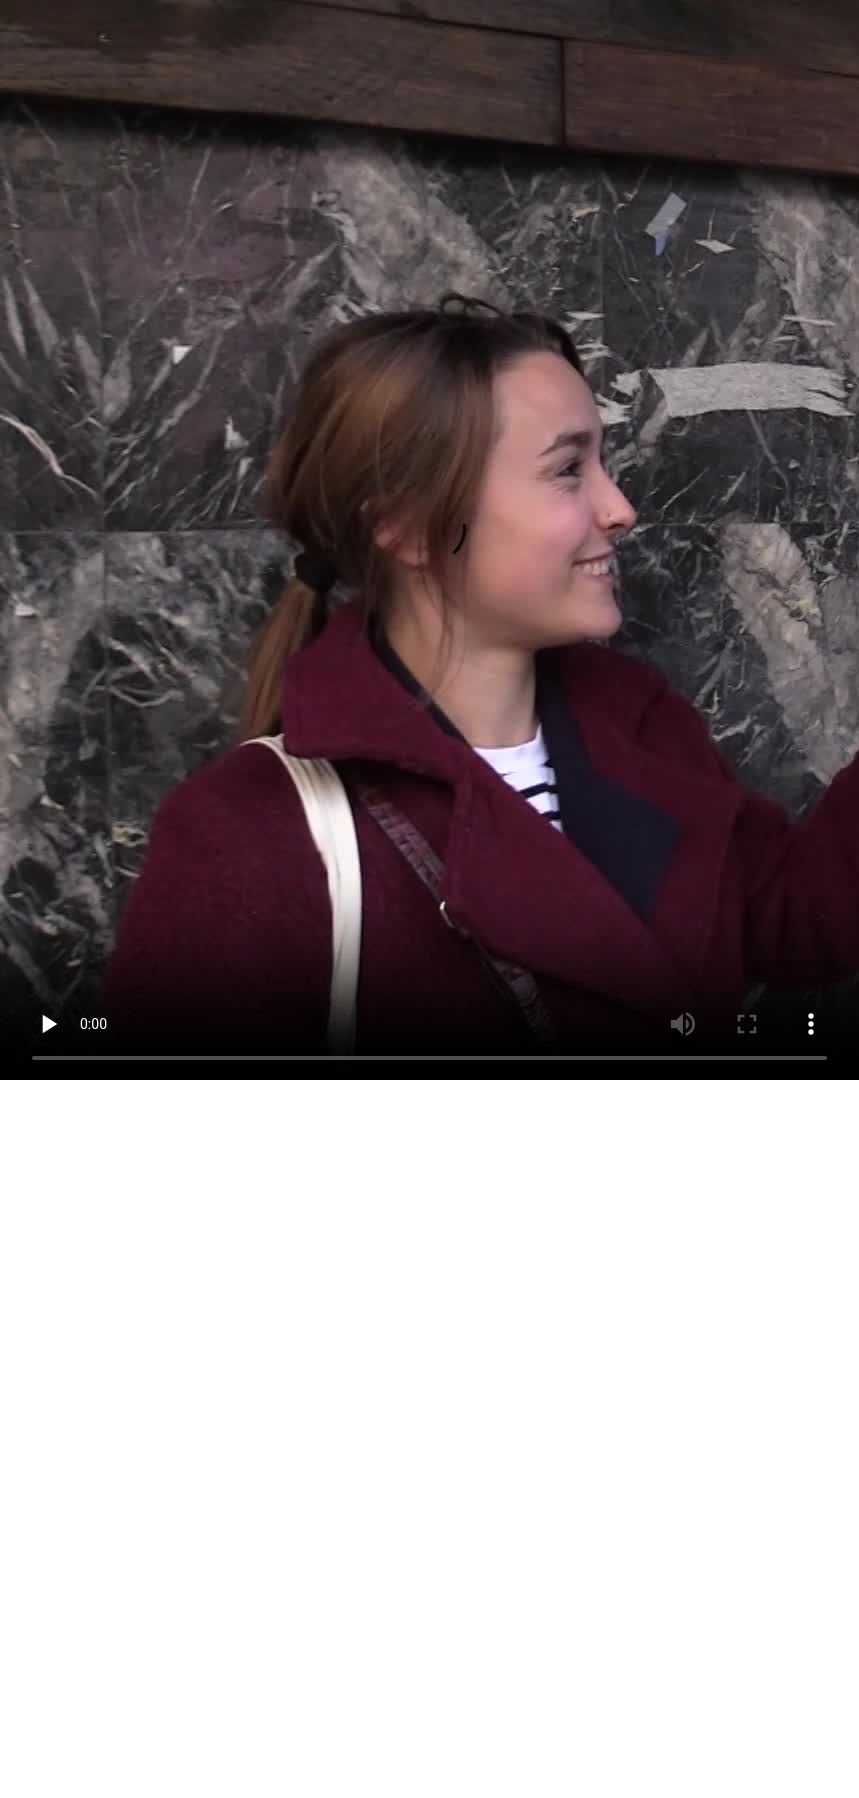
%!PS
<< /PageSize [859 1798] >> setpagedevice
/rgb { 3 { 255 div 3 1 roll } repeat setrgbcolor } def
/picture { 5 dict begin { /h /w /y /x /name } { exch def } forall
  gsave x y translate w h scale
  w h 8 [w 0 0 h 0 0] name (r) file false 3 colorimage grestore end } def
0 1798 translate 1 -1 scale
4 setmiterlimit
255 255 255 rgb
0 0 859 1798 rectfill
(img_01.rgb) 0 0 859 1080 picture
showpage
